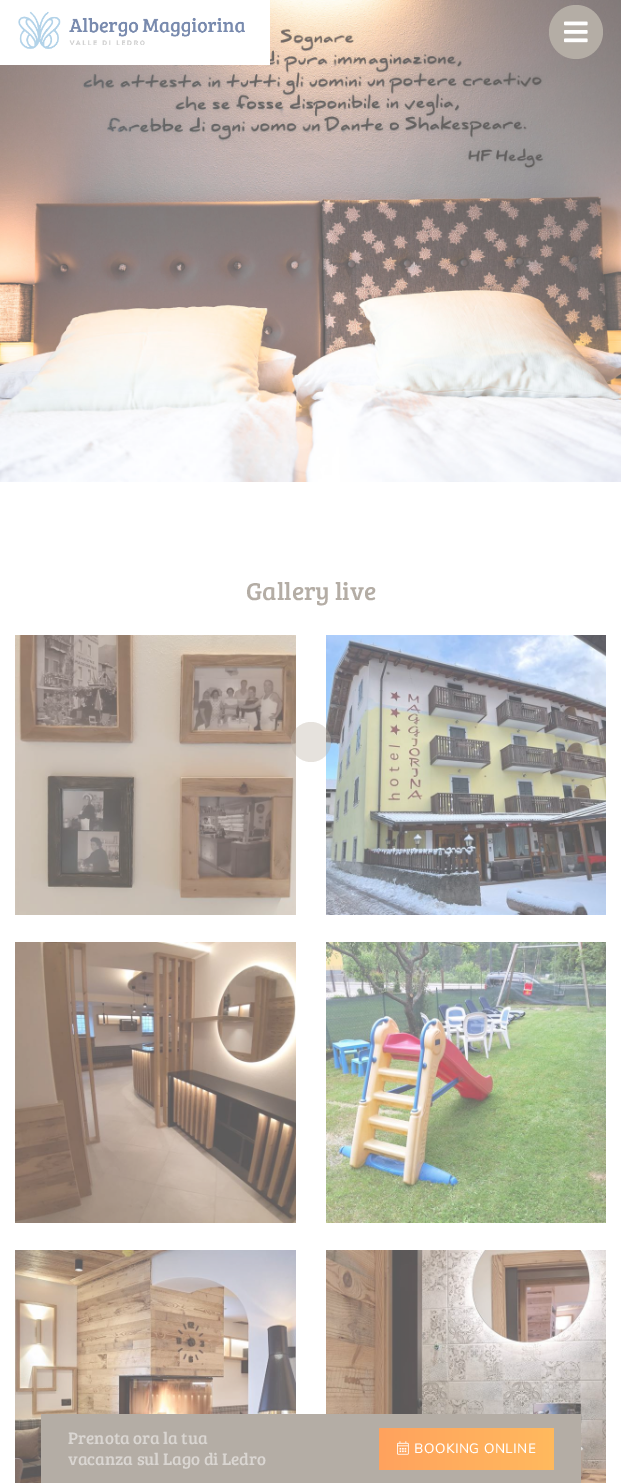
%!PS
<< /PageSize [621 1483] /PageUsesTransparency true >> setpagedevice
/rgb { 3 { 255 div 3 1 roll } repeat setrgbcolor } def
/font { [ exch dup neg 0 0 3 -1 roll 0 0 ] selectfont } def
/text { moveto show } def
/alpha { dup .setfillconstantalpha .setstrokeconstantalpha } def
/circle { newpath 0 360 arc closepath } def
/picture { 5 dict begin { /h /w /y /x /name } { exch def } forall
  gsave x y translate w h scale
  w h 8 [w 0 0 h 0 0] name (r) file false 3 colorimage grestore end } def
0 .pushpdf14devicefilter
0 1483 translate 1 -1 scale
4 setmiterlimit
255 255 255 rgb
0 0 621 1483 rectfill
(img_01.rgb) 15 635 281 280 picture
(img_02.rgb) 326 635 280 280 picture
(img_03.rgb) 15 942 281 281 picture
(img_04.rgb) 326 942 280 281 picture
(img_05.rgb) 15 1250 281 233 picture
(img_06.rgb) 326 1250 280 233 picture
0.21 alpha
188 178 167 rgb
311 742 20 circle fill
311 742 20 circle fill
1 alpha
(img_07.rgb) 0 0 621 482 picture
255 255 255 rgb
0 0 270 65 rectfill
(img_08.rgb) 18 11 227 38 picture
180 173 165 rgb
576 32 27 circle fill
(img_09.rgb) 564 21 24 22 picture
41 1414 540 69 rectfill
gsave 379 1428 moveto 175 0 rlineto 0 42 rlineto -175 0 rlineto closepath clip newpath
<< /ShadingType 2 /ColorSpace /DeviceRGB /Coords [379 1449 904 1449] /Extend [true true] /Function << /FunctionType 3 /Domain [0 1] /Functions [<< /FunctionType 2 /Domain [0 1] /C0 [1 0.635 0.365] /C1 [1 0.725 0.365] /N 1 >> << /FunctionType 2 /Domain [0 1] /C0 [1 0.725 0.365] /C1 [1 0.635 0.365] /N 1 >> << /FunctionType 2 /Domain [0 1] /C0 [1 0.635 0.365] /C1 [1 0.725 0.365] /N 1 >>] /Bounds [0.33 0.67] /Encode [0 1 0 1 0 1] >> >> shfill grestore
(img_10.rgb) 397 1441 12 14 picture
/BreeSerif-Regular 25.25 font
(Gallery live) 246 600 text
/BreeSerif-Regular 17.1 font
218 214 210 rgb
(Prenota ora la tua) 68 1444 text
(vacanza sul Lago di Ledro) 68 1465 text
/Muli-Medium 13.5 font
255 255 255 rgb
414 1453 moveto 0.5 0 (BOOKING ONLINE) ashow
.poppdf14devicefilter showpage
